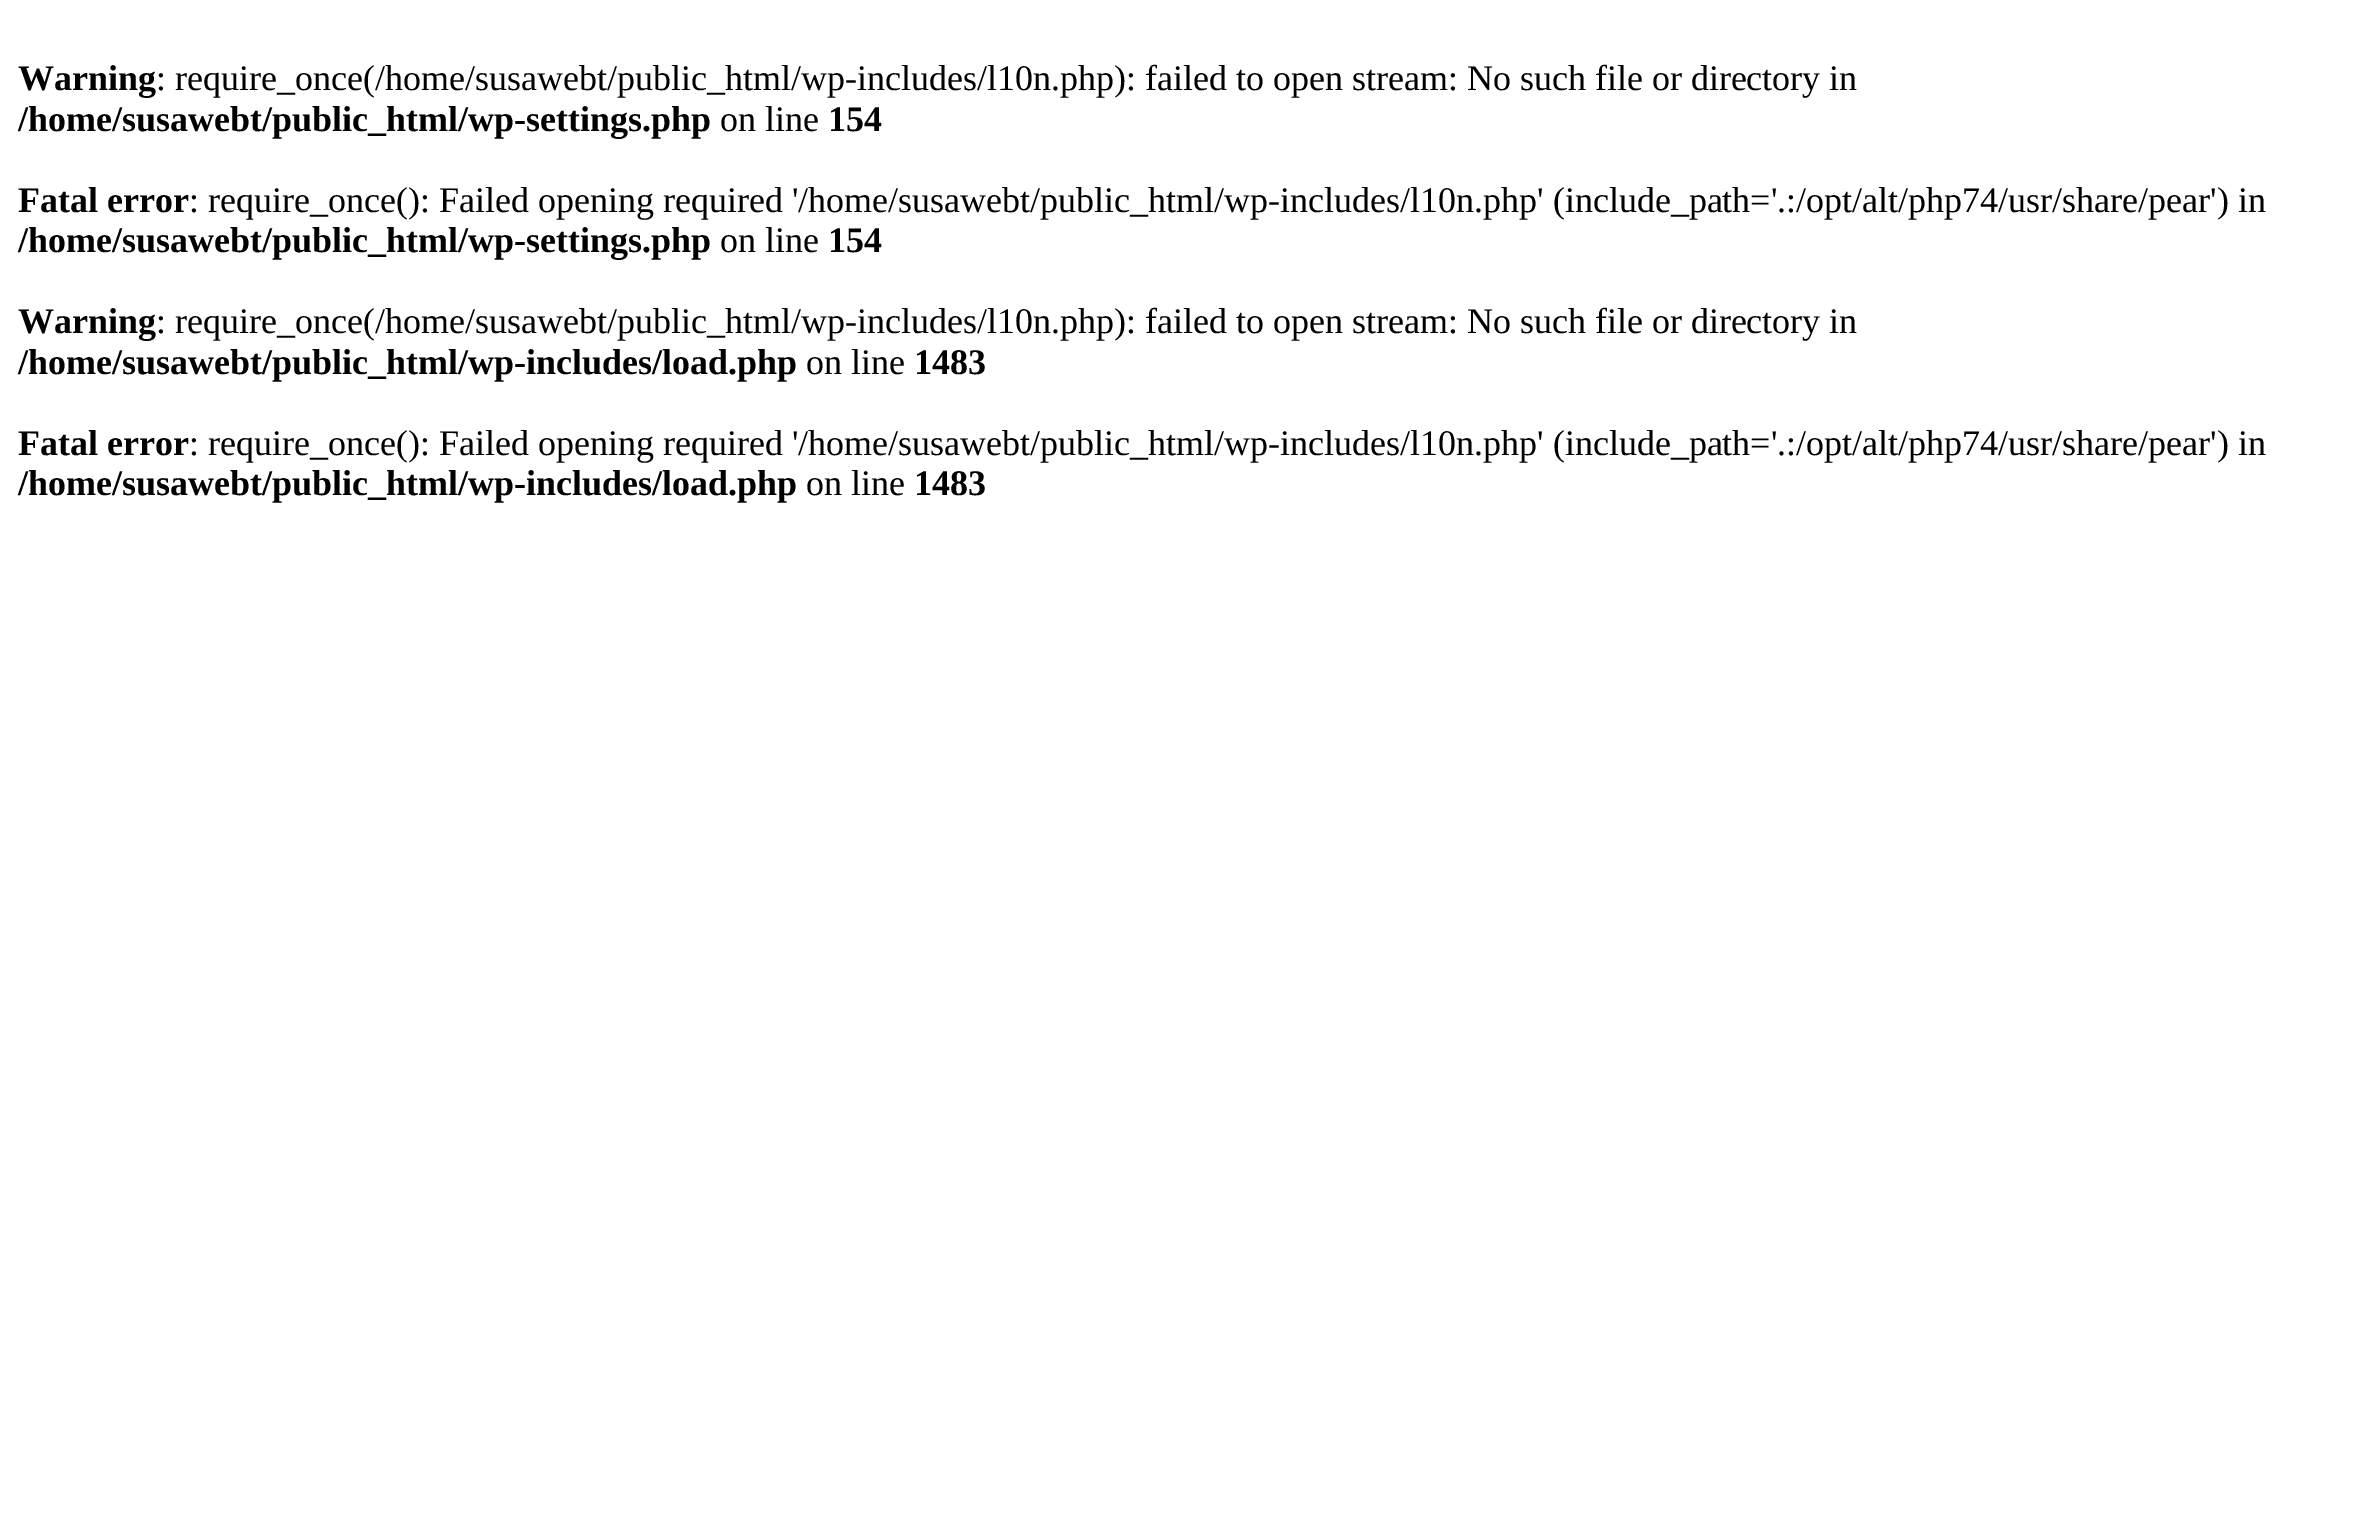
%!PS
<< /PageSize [2379 1534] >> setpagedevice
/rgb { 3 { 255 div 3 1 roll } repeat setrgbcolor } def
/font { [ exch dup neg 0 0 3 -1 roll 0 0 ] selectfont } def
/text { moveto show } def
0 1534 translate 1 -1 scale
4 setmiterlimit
255 255 255 rgb
0 0 2379 1534 rectfill
/LiberationSerif-Bold 36 font
0 0 0 rgb
(Warning) 18 90 text
/LiberationSerif-Regular 36 font
(: require_once\(/home/susawebt/public_html/wp-includes/l10n.php\): failed to open stream: No such file or directory in) 156 90 text
/LiberationSerif-Bold 36 font
(/home/susawebt/public_html/wp-settings.php) 18 131 text
/LiberationSerif-Regular 36 font
(on line) 720 131 text
/LiberationSerif-Bold 36 font
(154) 828 131 text
(Fatal error) 18 212 text
/LiberationSerif-Regular 36 font
(: require_once\(\): Failed opening required '/home/susawebt/public_html/wp-includes/l10n.php' \(include_path='.:/opt/alt/php74/usr/share/pear'\) in) 189 212 text
/LiberationSerif-Bold 36 font
(/home/susawebt/public_html/wp-settings.php) 18 252 text
/LiberationSerif-Regular 36 font
(on line) 720 252 text
/LiberationSerif-Bold 36 font
(154) 828 252 text
(Warning) 18 333 text
/LiberationSerif-Regular 36 font
(: require_once\(/home/susawebt/public_html/wp-includes/l10n.php\): failed to open stream: No such file or directory in) 156 333 text
/LiberationSerif-Bold 36 font
(/home/susawebt/public_html/wp-includes/load.php) 18 374 text
/LiberationSerif-Regular 36 font
(on line) 806 374 text
/LiberationSerif-Bold 36 font
(1483) 914 374 text
(Fatal error) 18 455 text
/LiberationSerif-Regular 36 font
(: require_once\(\): Failed opening required '/home/susawebt/public_html/wp-includes/l10n.php' \(include_path='.:/opt/alt/php74/usr/share/pear'\) in) 189 455 text
/LiberationSerif-Bold 36 font
(/home/susawebt/public_html/wp-includes/load.php) 18 495 text
/LiberationSerif-Regular 36 font
(on line) 806 495 text
/LiberationSerif-Bold 36 font
(1483) 914 495 text
showpage
